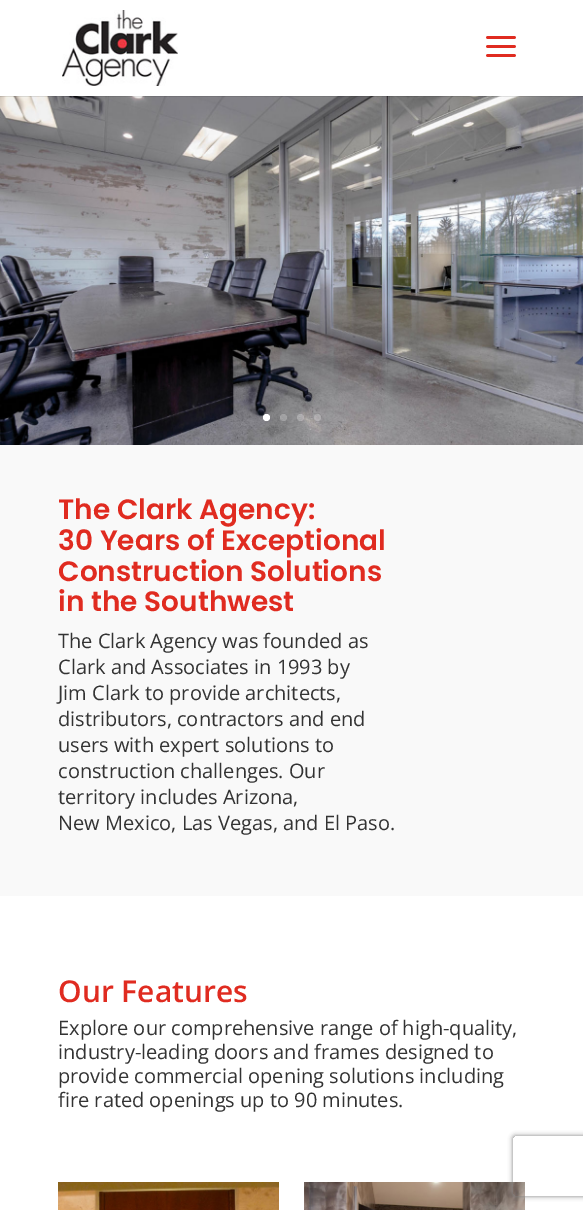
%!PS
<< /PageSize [583 1210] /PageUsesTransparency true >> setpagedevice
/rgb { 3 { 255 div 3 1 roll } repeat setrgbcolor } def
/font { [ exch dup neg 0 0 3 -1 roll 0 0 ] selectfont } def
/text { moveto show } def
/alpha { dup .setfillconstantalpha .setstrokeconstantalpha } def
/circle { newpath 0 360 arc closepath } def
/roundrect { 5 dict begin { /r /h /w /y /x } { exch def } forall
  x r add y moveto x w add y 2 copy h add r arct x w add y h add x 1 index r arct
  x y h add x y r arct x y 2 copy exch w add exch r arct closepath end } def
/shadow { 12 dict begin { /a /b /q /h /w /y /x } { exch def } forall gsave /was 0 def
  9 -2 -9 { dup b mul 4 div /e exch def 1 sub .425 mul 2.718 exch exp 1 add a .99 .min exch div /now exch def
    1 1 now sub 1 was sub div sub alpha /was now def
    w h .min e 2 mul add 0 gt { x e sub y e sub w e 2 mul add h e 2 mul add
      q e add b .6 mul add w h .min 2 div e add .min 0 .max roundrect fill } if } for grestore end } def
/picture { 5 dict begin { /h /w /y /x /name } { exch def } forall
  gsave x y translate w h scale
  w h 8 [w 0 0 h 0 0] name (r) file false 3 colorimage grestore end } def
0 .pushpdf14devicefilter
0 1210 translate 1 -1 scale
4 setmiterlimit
255 255 255 rgb
0 0 583 1210 rectfill
(img_03.rgb) 0 96 583 349 picture
0.1 alpha
0 0 0 rgb
0 96 583 1 rectfill
1 alpha
(img_01.rgb) 62 10 116 76 picture
(img_02.rgb) 486 36 30 21 picture
255 255 255 rgb
266.5 417.5 3.5 circle fill
0.25 alpha
283.5 417.5 3.5 circle fill
300.5 417.5 3.5 circle fill
317.5 417.5 3.5 circle fill
1 alpha
249 249 249 rgb
0 445 583 451 rectfill
(img_04.rgb) 58 1182 221 28 picture
(img_05.rgb) 304 1182 221 28 picture
gsave
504 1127 moveto 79 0 rlineto 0 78 rlineto -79 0 rlineto closepath 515 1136 moveto 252 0 rlineto 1 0 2 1 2 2 rcurveto 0 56 rlineto 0 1 -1 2 -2 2 rcurveto -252 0 rlineto -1 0 -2 -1 -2 -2 rcurveto 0 -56 rlineto 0 -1 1 -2 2 -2 rcurveto closepath eoclip newpath
128 128 128 rgb
513 1136 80 60 2 2.5 1 shadow
grestore
/Poppins-SemiBold 28 font
224 43 32 rgb
(The Clark Agency:) 58 519 text
(30 Years of Exceptional) 58 550 text
(Construction Solutions) 58 581 text
(in the Southwest) 58 611 text
/OpenSans-Regular 20 font
51 51 51 rgb
(The Clark Agency was founded as) 58 648 text
(Clark and Associates in 1993 by) 58 674 text
(Jim Clark to provide architects,) 58 700 text
(distributors, contractors and end) 58 726 text
(users with expert solutions to) 58 752 text
(construction challenges. Our) 58 778 text
(territory includes Arizona,) 58 804 text
(New Mexico, Las Vegas, and El Paso.) 58 830 text
/OpenSans-SemiBold 30 font
224 43 32 rgb
(Our Features) 58 1002 text
/OpenSans-Regular 20 font
51 51 51 rgb
(Explore our comprehensive range of high-quality,) 58 1035 text
(industry-leading doors and frames designed to) 58 1059 text
(provide commercial opening solutions including) 58 1083 text
(fire rated openings up to 90 minutes.) 58 1107 text
.poppdf14devicefilter showpage
